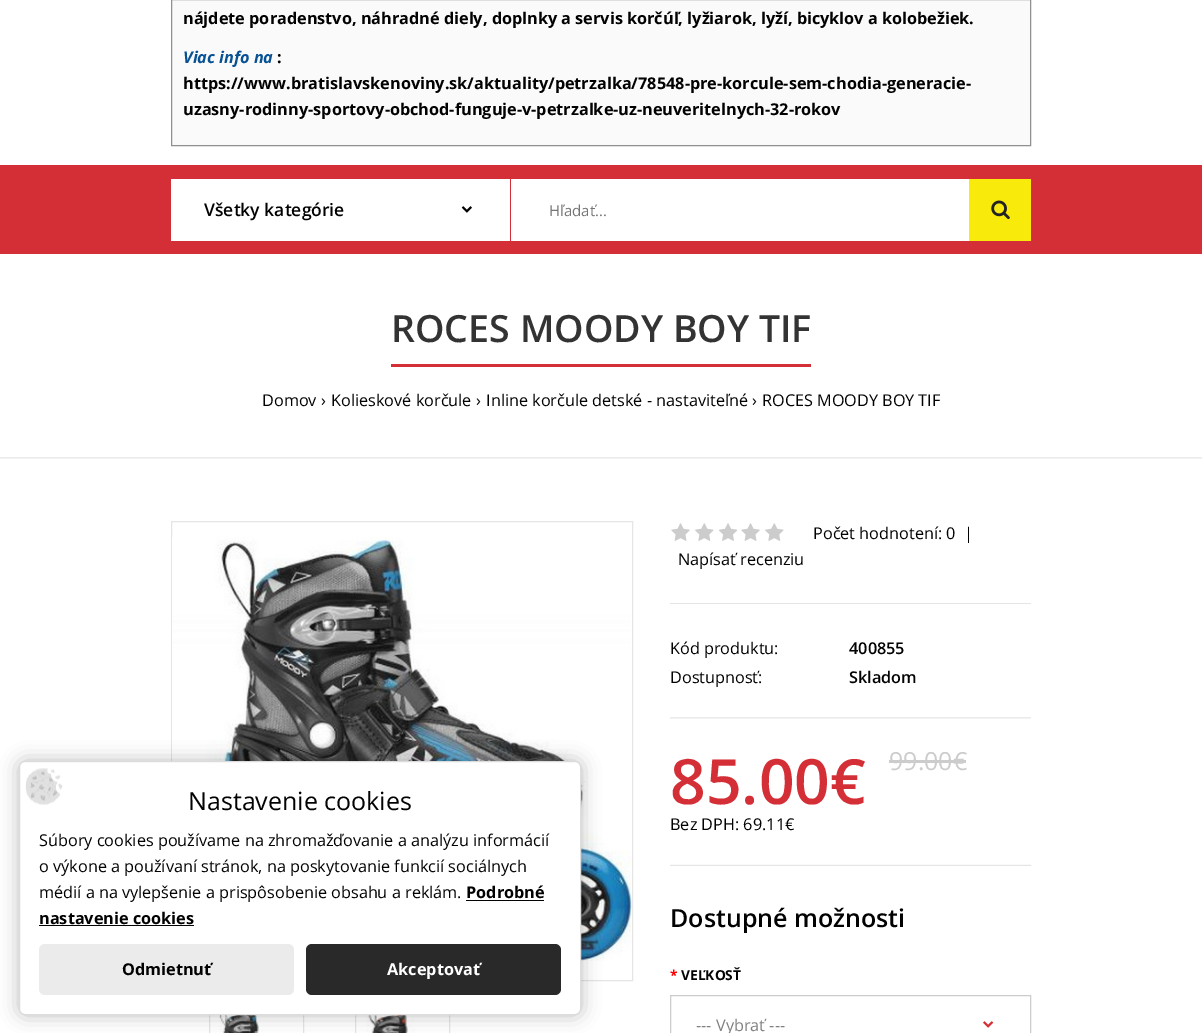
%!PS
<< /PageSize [1202 1033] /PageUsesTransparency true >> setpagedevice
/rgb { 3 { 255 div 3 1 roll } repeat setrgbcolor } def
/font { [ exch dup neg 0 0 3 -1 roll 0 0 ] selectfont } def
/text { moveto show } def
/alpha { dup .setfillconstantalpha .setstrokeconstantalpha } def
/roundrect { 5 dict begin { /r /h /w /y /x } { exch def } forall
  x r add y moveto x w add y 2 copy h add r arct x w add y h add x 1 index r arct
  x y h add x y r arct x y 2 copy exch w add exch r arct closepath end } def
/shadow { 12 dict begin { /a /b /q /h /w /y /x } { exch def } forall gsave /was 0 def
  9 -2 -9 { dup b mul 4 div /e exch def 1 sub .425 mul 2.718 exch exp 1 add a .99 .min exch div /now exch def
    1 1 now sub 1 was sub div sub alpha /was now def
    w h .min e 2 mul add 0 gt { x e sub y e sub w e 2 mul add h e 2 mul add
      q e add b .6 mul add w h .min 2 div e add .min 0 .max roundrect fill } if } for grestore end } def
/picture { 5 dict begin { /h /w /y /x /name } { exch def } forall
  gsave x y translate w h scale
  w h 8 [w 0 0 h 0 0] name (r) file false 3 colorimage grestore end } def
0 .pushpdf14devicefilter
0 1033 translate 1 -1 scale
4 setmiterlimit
255 255 255 rgb
0 0 1202 1033 rectfill
250 250 250 rgb
171.5 -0.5 moveto 859 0 rlineto 0 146 rlineto -859 0 rlineto closepath gsave fill grestore
144 144 144 rgb
stroke
212 47 55 rgb
0 165 1202 89 rectfill
255 255 255 rgb
171 179 798 62 rectfill
212 47 55 rgb
510 179 1 62 rectfill
(img_01.rgb) 461 206 11 7 picture
248 235 12 rgb
969 179 62 62 rectfill
(img_02.rgb) 991 200 19 20 picture
(img_03.rgb) 0 457 1202 2 picture
212 47 55 rgb
391 364 420 3 rectfill
229 229 229 rgb
171.5 521.5 461 459 rectstroke
(img_04.rgb) 172 537 460 424 picture
209.5 1006.5 94 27 rectstroke
(img_05.rgb) 219 1015 41 18 picture
355.5 1006.5 94 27 rectstroke
(img_06.rgb) 366 1015 49 18 picture
670 603 361 1 rectfill
(img_07.rgb) 671 523 19 18 picture
(img_08.rgb) 695 523 19 18 picture
(img_09.rgb) 719 523 19 18 picture
(img_07.rgb) 741 523 19 18 picture
(img_08.rgb) 765 523 19 18 picture
(img_10.rgb) 670 717 361 2 picture
204 204 204 rgb
889 760 77 3 rectfill
(img_11.rgb) 670 864 362 2 picture
670.5 995.5 360 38 rectstroke
(img_12.rgb) 983 1021 11 7 picture
0 0 0 rgb
19 761 562 254 6 9.5 0.25 shadow
255 255 255 rgb
19.5 761.5 561 253 5.5 roundrect gsave fill grestore
220 220 220 rgb
stroke
(img_13.rgb) 25 768 38 37 picture
2 2 2 rgb
466 900 78 1 rectfill
39 925 155 1 rectfill
235 235 235 rgb
39 944 255 51 6 roundrect fill
41 41 41 rgb
306 944 255 51 6 roundrect fill
/OpenSans-Bold 16.25 font
2 2 2 rgb
(nájdete poradenstvo, náhradné diely, doplnky a servis korčúľ, lyžiarok, lyží, bicyklov a kolobežiek.) 183 24 text
/OpenSans-BoldItalic 16.25 font
8 82 148 rgb
(Viac info na) 183 63 text
/OpenSans-Bold 16.25 font
2 2 2 rgb
(:) 277 63 text
(https://www.bratislavskenoviny.sk/aktuality/petrzalka/78548-pre-korcule-sem-chodia-generacie-) 183 89 text
(uzasny-rodinny-sportovy-obchod-funguje-v-petrzalke-uz-neuveritelnych-32-rokov) 183 115 text
/OpenSans-SemiBold 17.5 font
(Všetky kategórie) 204 216 text
/OpenSans-Regular 15 font
117 117 117 rgb
(Hľadať...) 549 216 text
/OpenSans-SemiBold 37.5 font
51 51 51 rgb
(ROCES MOODY BOY TIF) 391 342 text
/OpenSans-Regular 16.25 font
2 2 2 rgb
(Domov ›) 262 406 text
(Kolieskové korčule ›) 331 406 text
(Inline korčule detské - nastaviteľné ›) 486 406 text
(ROCES MOODY BOY TIF) 762 406 text
(Počet hodnotení: 0) 813 539 text
(|) 964 539 text
(Napísať recenziu) 678 565 text
(Kód produktu:) 670 654 text
/OpenSans-SemiBold 16.25 font
(400855) 849 654 text
/OpenSans-Regular 16.25 font
(Dostupnosť:) 670 683 text
/OpenSans-SemiBold 16.25 font
(Skladom) 849 683 text
/OpenSans-SemiBold 62.5 font
212 47 55 rgb
(85.00€) 670 804 text
/OpenSans-Regular 25 font
204 204 204 rgb
(99.00€) 889 770 text
/OpenSans-Regular 16.25 font
2 2 2 rgb
(Bez DPH: 69.11€) 670 830 text
/OpenSans-SemiBold 25 font
(Dostupné možnosti) 670 927 text
/OpenSans-Bold 13.75 font
255 0 0 rgb
(*) 670 980 text
2 2 2 rgb
(VEĽKOSŤ) 681 980 text
/OpenSans-Regular 16.25 font
128 128 128 rgb
(--- Vybrať ---) 696 1031 text
/OpenSans-Regular 25 font
2 2 2 rgb
(Nastavenie cookies) 188 810 text
/OpenSans-Regular 16.25 font
(Súbory cookies používame na zhromažďovanie a analýzu informácií) 39 846 text
(o výkone a používaní stránok, na poskytovanie funkcií sociálnych) 39 872 text
(médií a na vylepšenie a prispôsobenie obsahu a reklám.) 39 898 text
/OpenSans-Bold 16.25 font
(Podrobné) 466 898 text
(nastavenie cookies) 39 924 text
(Odmietnuť) 122 975 text
255 255 255 rgb
(Akceptovať) 387 975 text
.poppdf14devicefilter showpage
